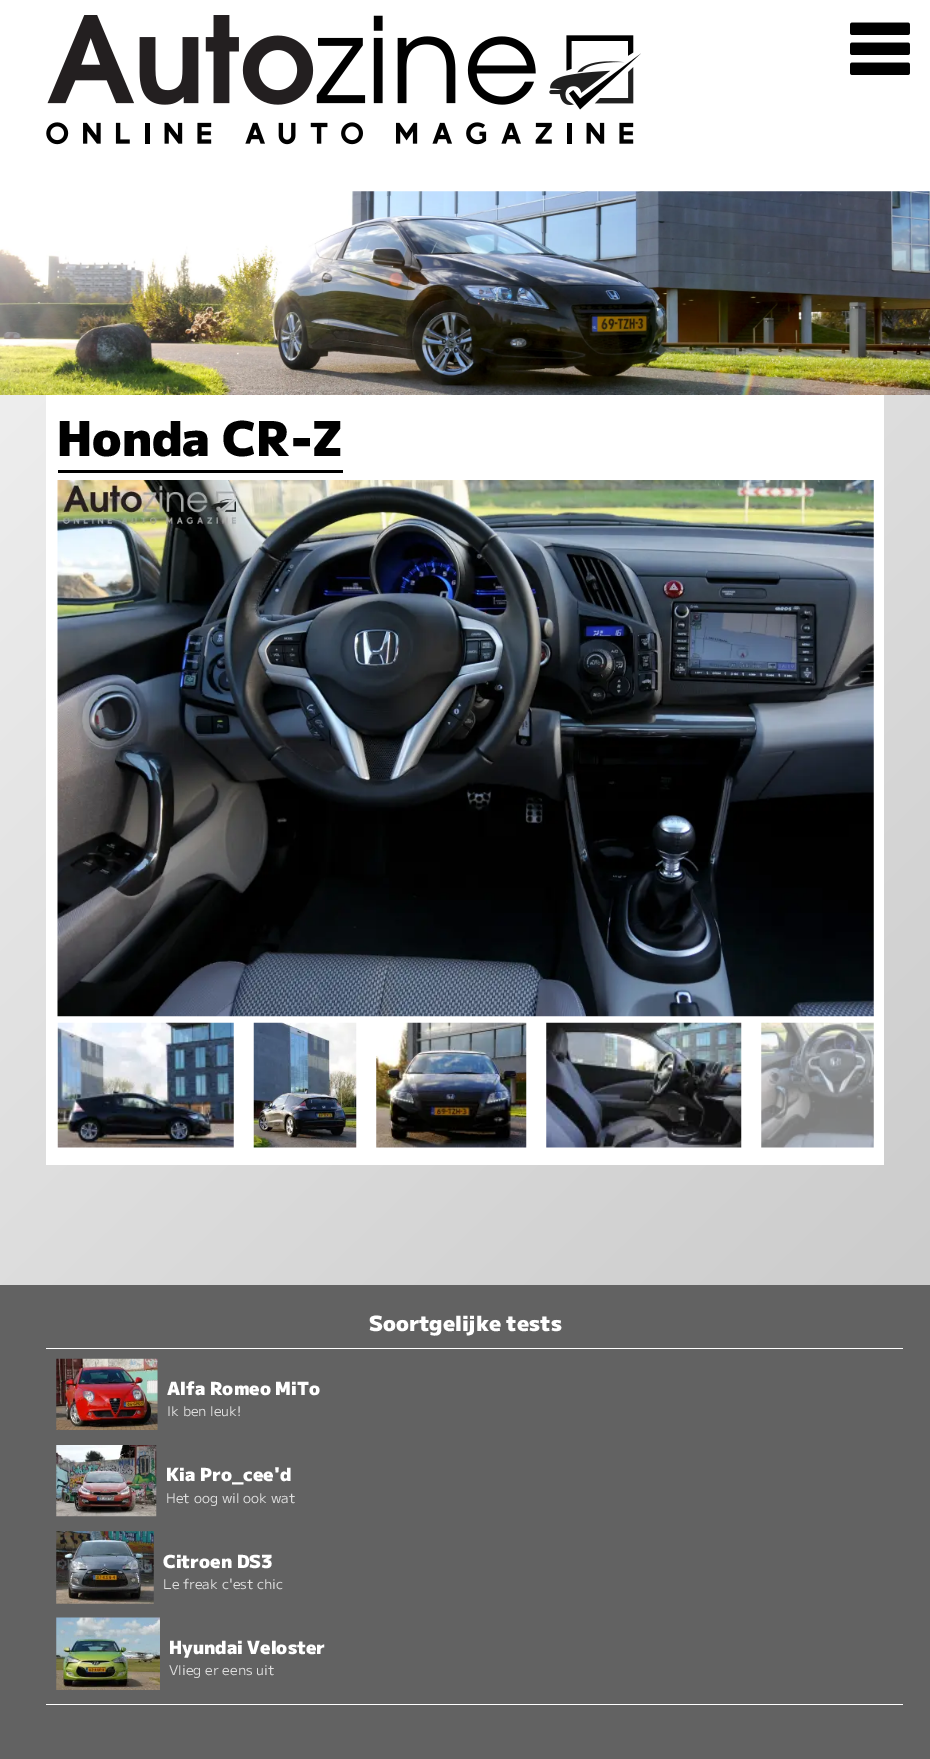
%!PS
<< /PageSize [930 1759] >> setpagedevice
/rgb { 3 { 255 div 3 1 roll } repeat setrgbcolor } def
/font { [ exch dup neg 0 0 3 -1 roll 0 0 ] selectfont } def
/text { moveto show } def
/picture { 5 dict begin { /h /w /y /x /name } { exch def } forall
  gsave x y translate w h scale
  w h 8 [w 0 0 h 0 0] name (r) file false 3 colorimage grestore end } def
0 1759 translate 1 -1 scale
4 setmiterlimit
255 255 255 rgb
0 0 930 1759 rectfill
(img_01.rgb) 46 15 595 130 picture
(img_02.rgb) 850 22 60 53 picture
(img_03.rgb) 0 191 930 204 picture
gsave 0 395 moveto 930 0 rlineto 0 890 rlineto -930 0 rlineto closepath clip newpath
<< /ShadingType 2 /ColorSpace /DeviceRGB /Coords [20 375 910 1305] /Extend [true true] /Function << /FunctionType 2 /Domain [0 1] /C0 [0.933 0.933 0.933] /C1 [0.8 0.8 0.8] /N 1 >> >> shfill grestore
46 395 838 770 rectfill
0 0 0 rgb
58 470 285 3 rectfill
(img_04.rgb) 57 480 817 537 picture
(img_05.rgb) 57 1022 177 126 picture
(img_06.rgb) 253 1022 104 126 picture
(img_07.rgb) 376 1022 151 126 picture
(img_08.rgb) 546 1022 196 126 picture
(img_09.rgb) 761 1022 113 126 picture
98 98 98 rgb
0 1285 930 474 rectfill
255 255 255 rgb
46 1348 857 1 rectfill
46 1704 857 1 rectfill
(img_10.rgb) 56 1358 102 72 picture
(img_11.rgb) 56 1445 101 72 picture
(img_12.rgb) 56 1531 98 73 picture
(img_13.rgb) 56 1617 104 73 picture
/MPLUS1-Black 48 font
0 0 0 rgb
(Honda CR-Z) 57 456 text
/MPLUS1-Black 21 font
255 255 255 rgb
(Soortgelijke tests) 369 1331 text
/MPLUS1-Black 18 font
(Alfa Romeo MiTo) 167 1395 text
/MPLUS1-Regular 13.5 font
222 222 222 rgb
(Ik ben leuk!) 167 1416 text
/MPLUS1-Black 18 font
255 255 255 rgb
(Kia Pro_cee'd) 166 1481 text
/MPLUS1-Regular 13.5 font
222 222 222 rgb
(Het oog wil ook wat) 166 1503 text
/MPLUS1-Black 18 font
255 255 255 rgb
(Citroen DS3) 163 1568 text
/MPLUS1-Regular 13.5 font
222 222 222 rgb
(Le freak c'est chic) 163 1589 text
/MPLUS1-Black 18 font
255 255 255 rgb
(Hyundai Veloster) 169 1654 text
/MPLUS1-Regular 13.5 font
222 222 222 rgb
(Vlieg er eens uit) 169 1675 text
showpage
